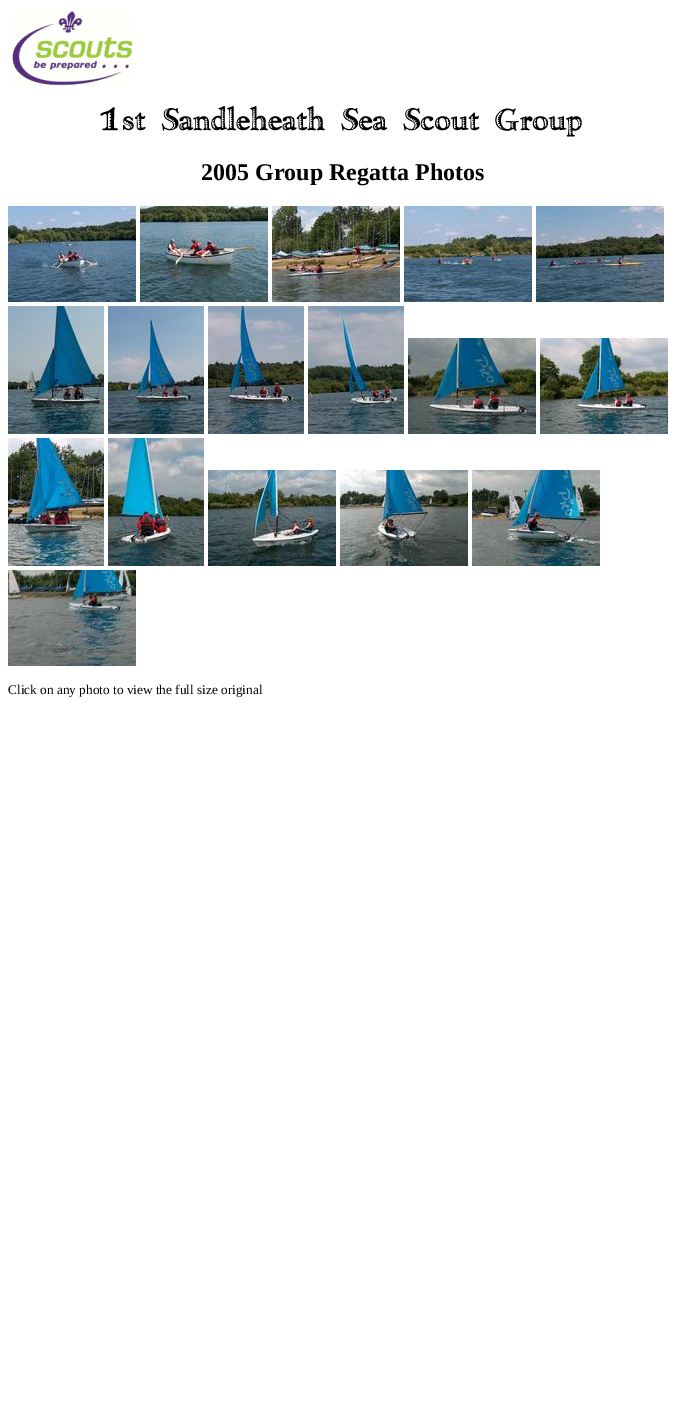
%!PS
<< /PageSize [686 1422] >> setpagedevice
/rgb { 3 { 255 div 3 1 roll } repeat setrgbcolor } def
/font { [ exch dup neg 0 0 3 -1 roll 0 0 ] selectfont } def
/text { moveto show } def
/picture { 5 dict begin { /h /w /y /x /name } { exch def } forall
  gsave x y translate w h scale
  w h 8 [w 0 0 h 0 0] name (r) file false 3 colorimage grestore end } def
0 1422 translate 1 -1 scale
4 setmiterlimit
255 255 255 rgb
0 0 686 1422 rectfill
(img_01.rgb) 12 11 121 75 picture
(img_02.rgb) 100 106 482 31 picture
(img_03.rgb) 8 206 128 96 picture
(img_04.rgb) 140 206 128 96 picture
(img_05.rgb) 272 206 128 96 picture
(img_06.rgb) 404 206 128 96 picture
(img_07.rgb) 536 206 128 96 picture
(img_08.rgb) 8 306 96 128 picture
(img_09.rgb) 108 306 96 128 picture
(img_10.rgb) 208 306 96 128 picture
(img_11.rgb) 308 306 96 128 picture
(img_12.rgb) 408 338 128 96 picture
(img_13.rgb) 540 338 128 96 picture
(img_14.rgb) 8 438 96 128 picture
(img_15.rgb) 108 438 96 128 picture
(img_16.rgb) 208 470 128 96 picture
(img_17.rgb) 340 470 128 96 picture
(img_18.rgb) 472 470 128 96 picture
(img_19.rgb) 8 570 128 96 picture
/LiberationSerif-Bold 24 font
0 0 0 rgb
(2005 Group Regatta Photos) 201 180 text
/LiberationSerif-Regular 13.3 font
(Click on any photo to view the full size original) 8 694 text
showpage
